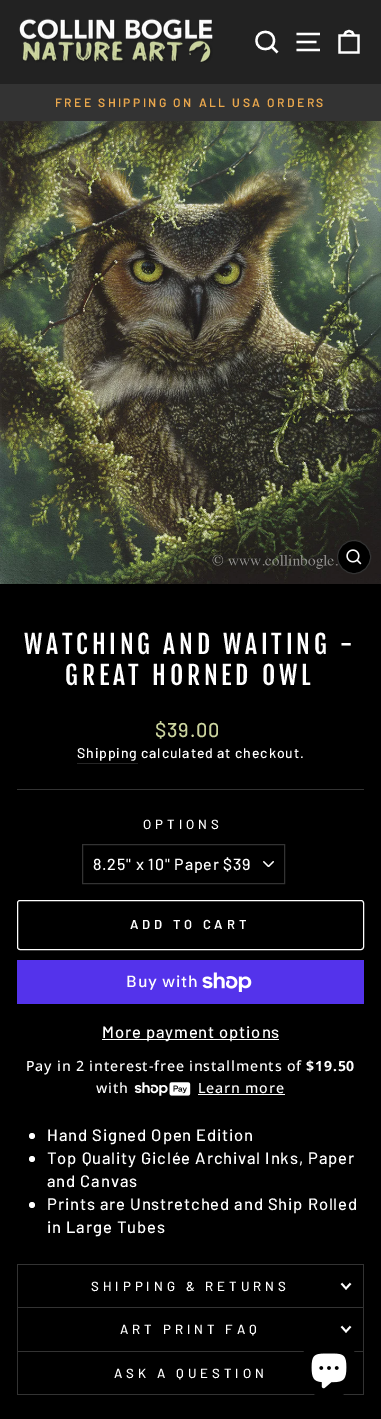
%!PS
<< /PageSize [381 1419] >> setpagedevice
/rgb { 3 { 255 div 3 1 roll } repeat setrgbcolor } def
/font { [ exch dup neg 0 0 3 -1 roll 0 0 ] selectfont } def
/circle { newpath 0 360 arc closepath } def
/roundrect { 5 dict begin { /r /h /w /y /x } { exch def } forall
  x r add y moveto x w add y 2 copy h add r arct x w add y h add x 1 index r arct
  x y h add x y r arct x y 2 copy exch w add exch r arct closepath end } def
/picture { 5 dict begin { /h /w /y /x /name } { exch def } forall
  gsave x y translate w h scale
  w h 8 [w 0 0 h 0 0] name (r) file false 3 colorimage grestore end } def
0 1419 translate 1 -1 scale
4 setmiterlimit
0 0 0 rgb
0 0 381 1419 rectfill
34 34 34 rgb
0 0 381 84 rectfill
(img_01.rgb) 19 18 194 45 picture
255 255 255 rgb
2.3 setlinewidth
274 40.5 moveto 0 11.5 -17.5 11.5 -17.5 0 rcurveto 0 -11.5 17.5 -11.5 17.5 0 rcurveto closepath 277.5 52.5 moveto -6 -6 rlineto stroke
296.5 34 moveto 23.5 0 rlineto 296.5 42 moveto 20 0 rlineto 296.5 50 moveto 23.5 0 rlineto stroke
339.5 35.5 moveto 19 0 rlineto 0 17 rlineto -19 0 rlineto closepath 344.5 35.5 moveto 0 -6 9 -6 9 0 rcurveto stroke
51 51 51 rgb
0 84 381 37 rectfill
(img_02.rgb) 0 121 381 463 picture
0 0 0 rgb
354 557 16.5 circle gsave fill grestore
51 51 51 rgb
1 setlinewidth
stroke
(img_03.rgb) 346 549 16 16 picture
38 38 38 rgb
77 763 61 1 rectfill
51 51 51 rgb
17 789 347 1 rectfill
(img_04.rgb) 263 861 11 6 picture
82.5 844.5 202 39 rectstroke
255 255 255 rgb
17.5 900.5 346 49 2.5 roundrect stroke
84 51 235 rgb
17 960 347 44 rectfill
(img_05.rgb) 202 972 50 20 picture
255 255 255 rgb
102 1039 177 1 rectfill
(img_06.rgb) 134 1082 57 14 picture
198 1094 87 1 rectfill
32 1136 3 circle fill
32 1159 3 circle fill
32 1205 3 circle fill
51 51 51 rgb
17 1307 347 1 rectfill
17 1264 347 1 rectfill
363 1264 1 43 rectfill
17 1264 1 43 rectfill
255 255 255 rgb
1.8 setlinewidth
341.5 1283.5 moveto 4.5 5 rlineto 4.5 -5 rlineto stroke
51 51 51 rgb
17 1351 347 1 rectfill
363 1308 1 43 rectfill
17 1308 1 43 rectfill
255 255 255 rgb
341.5 1326.5 moveto 4.5 5 rlineto 4.5 -5 rlineto stroke
51 51 51 rgb
17 1394 347 1 rectfill
363 1352 1 42 rectfill
17 1352 1 42 rectfill
0 0 0 rgb
329 1368 30 circle fill
(img_07.rgb) 311 1353 36 36 picture
/Barlow-SemiBold 12.15 font
233 167 77 rgb
55 107 moveto 2.4 0 (FREE SHIPPING ON ALL USA ORDERS) ashow
/FjallaOne-Regular 25.5 font
255 255 255 rgb
24 654 moveto 3.8 0 (WATCHING AND WAITING -) ashow
65 685 moveto 3.8 0 (GREAT HORNED OWL) ashow
/Barlow-Medium 20 font
203 212 158 rgb
155 737 moveto 0.85 0 ($39.00) ashow
/Barlow-Medium 14.1 font
255 255 255 rgb
77 758 moveto 0.85 0 (Shipping) ashow
141 758 moveto 0.85 0 (calculated at checkout.) ashow
/Barlow-Medium 13.25 font
143 829 moveto 4 0 (OPTIONS) ashow
/Barlow-Medium 16 font
93 870 moveto 0.8 0 (8.25" x 10" Paper $39) ashow
/Barlow-SemiBold 13 font
130 929 moveto 3.9 0 (ADD TO CART) ashow
/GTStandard-Medium 16 font
126 987 moveto 0.85 0 (Buy with) ashow
/Barlow-Medium 16.6 font
102 1038 moveto 0.85 0 (More payment options) ashow
/NotoSans-Medium 14.1 font
26 1071 moveto 0.85 0 (Pay in 2 interest-free installments of) ashow
/NotoSans-Bold 14.1 font
306 1071 moveto 0.85 0 ($19.50) ashow
/NotoSans-Medium 14.1 font
96 1093 moveto 0.85 0 (with) ashow
198 1093 moveto 0.85 0 (Learn more) ashow
/Barlow-Medium 16.6 font
47 1141 moveto 0.85 0 (Hand Signed Open Edition) ashow
47 1164 moveto 0.85 0 (Top Quality Giclée Archival Inks, Paper) ashow
47 1187 moveto 0.85 0 (and Canvas) ashow
47 1210 moveto 0.85 0 (Prints are Unstretched and Ship Rolled) ashow
47 1233 moveto 0.85 0 (in Large Tubes) ashow
/Barlow-Medium 13.25 font
91 1291 moveto 4 0 (SHIPPING & RETURNS) ashow
120 1334 moveto 4 0 (ART PRINT FAQ) ashow
114 1378 moveto 4 0 (ASK A QUESTION) ashow
showpage
